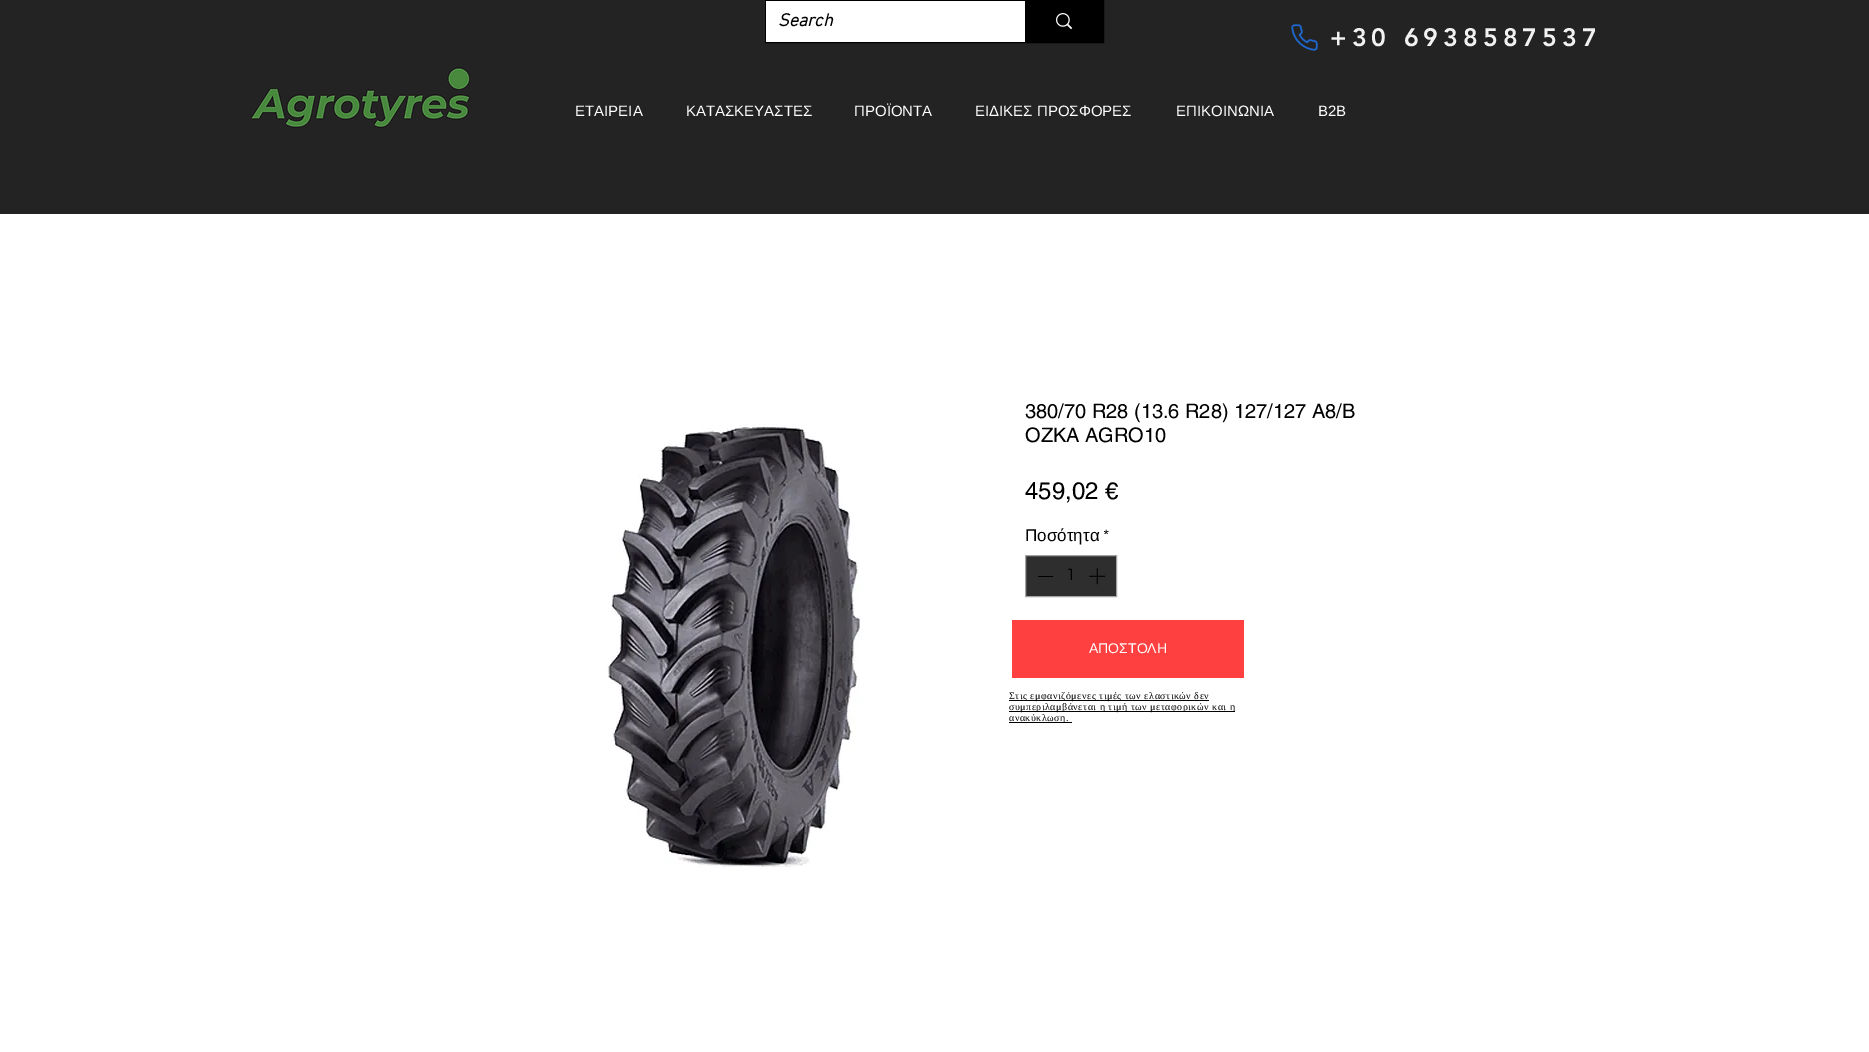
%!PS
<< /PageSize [1869 1052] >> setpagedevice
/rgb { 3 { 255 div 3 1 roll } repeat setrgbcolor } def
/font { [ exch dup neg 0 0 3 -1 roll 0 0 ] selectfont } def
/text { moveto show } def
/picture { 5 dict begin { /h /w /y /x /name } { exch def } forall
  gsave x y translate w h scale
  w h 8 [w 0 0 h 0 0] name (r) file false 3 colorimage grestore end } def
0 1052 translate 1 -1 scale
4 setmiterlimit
255 255 255 rgb
0 0 1869 1052 rectfill
36 35 35 rgb
0 0 1869 214 rectfill
0 0 0 rgb
765.5 0.5 338 42 rectstroke
255 255 255 rgb
766 1 259 41 rectfill
0 0 0 rgb
1025 1 78 41 rectfill
(img_01.rgb) 1056 13 17 17 picture
(img_02.rgb) 1291 24 27 27 picture
(img_03.rgb) 251 67 220 61 picture
(img_04.rgb) 607 424 256 444 picture
47 46 46 rgb
1025.5 555.5 moveto 91 0 rlineto 0 41 rlineto -91 0 rlineto closepath gsave fill grestore
164 164 164 rgb
stroke
0 0 0 rgb
1038 576 15 1 rectfill
(img_05.rgb) 1089 568 17 17 picture
255 64 64 rgb
1012 620 232 58 rectfill
0 0 0 rgb
1009 700 200 1 rectfill
1009 711 226 1 rectfill
1009 722 63 1 rectfill
/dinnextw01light-BoldItalic 18 font
(Search) 778 26 text
/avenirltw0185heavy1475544-Black 25 font
242 242 242 rgb
1330 46 moveto 5 0 (+30 6938587537) ashow
/LiberationSans-Regular 15 font
255 255 255 rgb
(ΕΤΑΙΡΕΙΑ) 575 116 text
(ΚΑΤΑΣΚΕΥΑΣΤΕΣ) 686 116 text
(ΠΡΟΪΟΝΤΑ) 854 116 text
(ΕΙΔΙΚΕΣ ΠΡΟΣΦΟΡΕΣ) 975 116 text
(ΕΠΙΚΟΙΝΩΝΙΑ) 1176 116 text
(Β2Β) 1318 116 text
/helvetica-Regular 20 font
0 0 0 rgb
(380/70 R28 \(13.6 R28\) 127/127 A8/B) 1025 418 text
(OZKA AGRO10) 1025 442 text
/helvetica-Regular 24 font
(459,02 €) 1025 499 text
/LiberationSans-Regular 17 font
(Ποσότητα) 1025 541 text
/Questrial-Regular 17 font
(*) 1103 541 text
(1) 1066 580 text
/LiberationSans-Regular 14 font
255 255 255 rgb
(ΑΠΟΣΤΟΛΗ) 1089 653 text
/LiberationSerif-Regular 10 font
0 0 0 rgb
1009 699 moveto 0.5 0 (Στις εμφανιζόμενες τιμές των ελαστικών δεν) ashow
1009 710 moveto 0.5 0 (συμπεριλαμβάνεται η τιμή των μεταφορικών και η) ashow
1009 721 moveto 0.5 0 (ανακύκλωση.) ashow
showpage
